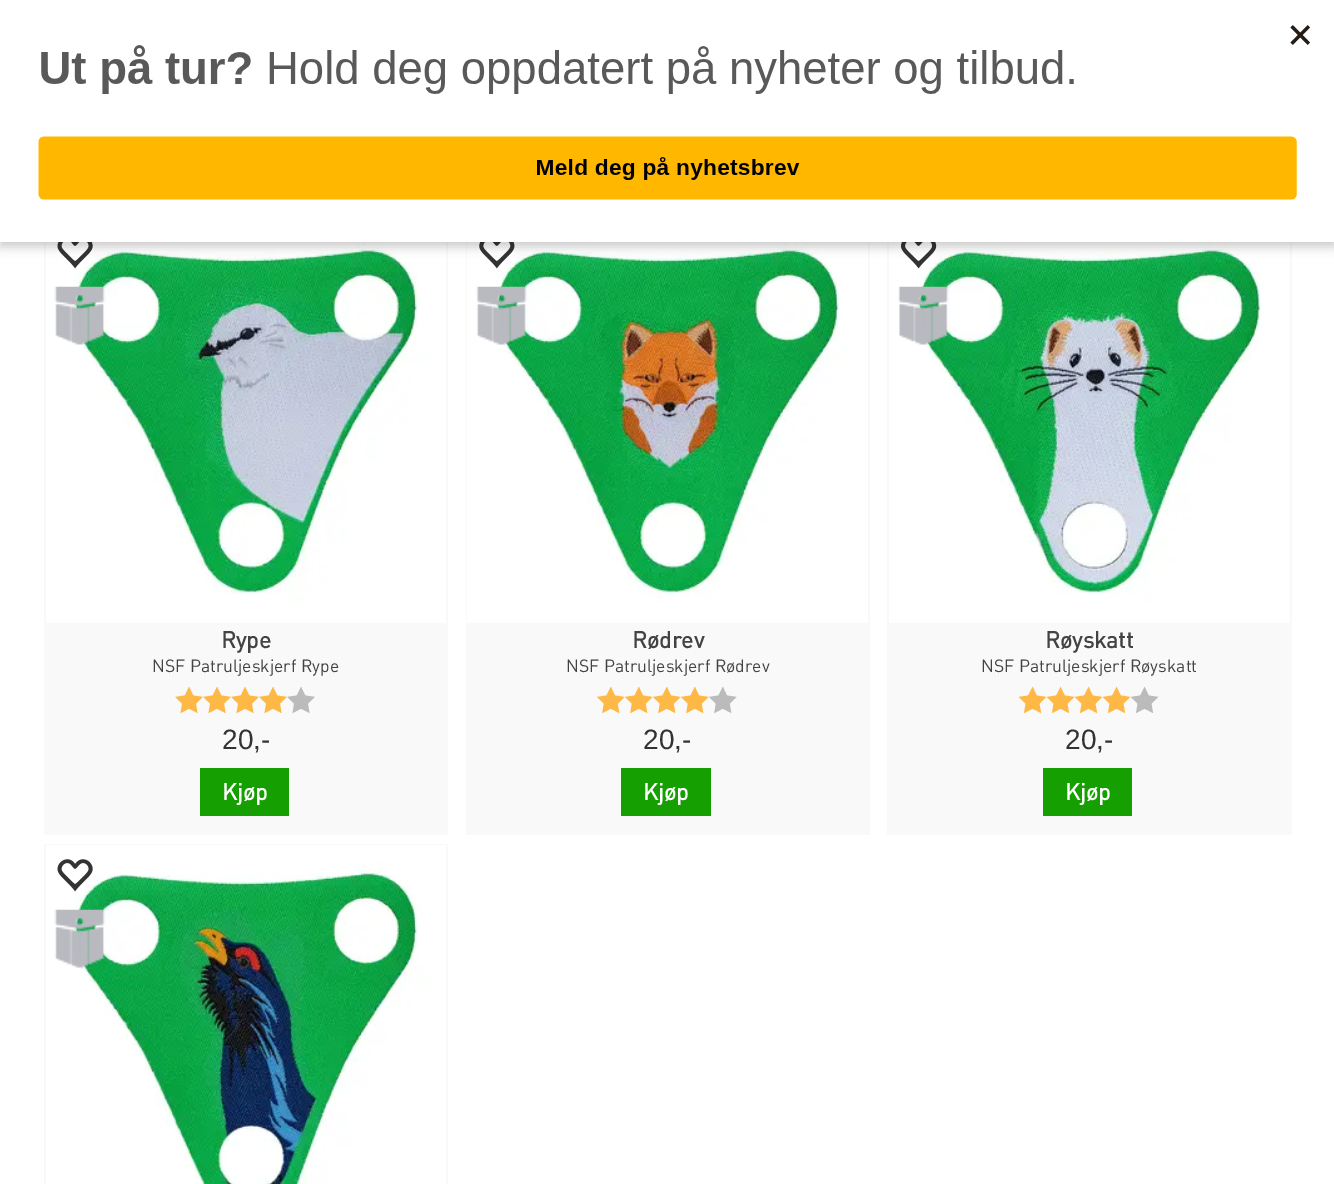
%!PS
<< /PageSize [1334 1184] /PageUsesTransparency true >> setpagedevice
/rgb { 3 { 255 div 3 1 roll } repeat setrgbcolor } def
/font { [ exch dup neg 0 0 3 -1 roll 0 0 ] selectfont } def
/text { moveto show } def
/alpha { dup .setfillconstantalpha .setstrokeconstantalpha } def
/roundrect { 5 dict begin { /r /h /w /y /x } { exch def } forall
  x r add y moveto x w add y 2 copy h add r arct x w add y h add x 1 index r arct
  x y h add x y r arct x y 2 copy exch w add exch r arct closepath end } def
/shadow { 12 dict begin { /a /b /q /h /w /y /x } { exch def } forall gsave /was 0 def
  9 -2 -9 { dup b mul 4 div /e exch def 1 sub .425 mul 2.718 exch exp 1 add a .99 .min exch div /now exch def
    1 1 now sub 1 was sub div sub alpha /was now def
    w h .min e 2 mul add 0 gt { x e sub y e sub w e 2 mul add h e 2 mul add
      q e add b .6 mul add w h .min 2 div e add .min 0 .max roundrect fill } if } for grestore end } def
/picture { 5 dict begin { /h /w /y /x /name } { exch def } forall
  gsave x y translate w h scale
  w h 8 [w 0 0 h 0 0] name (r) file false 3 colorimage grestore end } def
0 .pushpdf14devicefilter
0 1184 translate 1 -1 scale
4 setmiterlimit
255 255 255 rgb
0 0 1334 1184 rectfill
249 249 249 rgb
44 242 404 593 rectfill
(img_02.rgb) 46 242 400 381 picture
(img_03.rgb) 57 242 36 27 picture
466 242 404 593 rectfill
(img_07.rgb) 467 242 401 381 picture
(img_08.rgb) 479 242 36 27 picture
887 242 405 593 rectfill
(img_12.rgb) 889 242 401 381 picture
(img_13.rgb) 901 242 36 27 picture
0 0 0 rgb
0 5 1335 242 0 5 0.2 shadow
255 255 255 rgb
0 0 1334 242 rectfill
(img_01.rgb) 38 25 1272 175 picture
(img_04.rgb) 54 286 51 59 picture
(img_05.rgb) 175 686 28 28 picture
(img_05.rgb) 203 686 28 28 picture
(img_05.rgb) 231 686 28 28 picture
(img_05.rgb) 259 686 28 28 picture
(img_06.rgb) 287 686 28 28 picture
21 159 0 rgb
200 768 89 48 rectfill
(img_09.rgb) 476 286 51 59 picture
(img_10.rgb) 597 686 28 28 picture
(img_10.rgb) 625 686 28 28 picture
(img_10.rgb) 653 686 28 28 picture
(img_10.rgb) 681 686 28 28 picture
(img_11.rgb) 709 686 28 28 picture
621 768 90 48 rectfill
(img_14.rgb) 898 286 51 59 picture
(img_15.rgb) 1019 686 28 28 picture
(img_15.rgb) 1047 686 28 28 picture
(img_15.rgb) 1075 686 28 28 picture
(img_15.rgb) 1103 686 28 28 picture
(img_16.rgb) 1131 686 28 27 picture
1043 768 89 48 rectfill
249 249 249 rgb
44 844 404 340 rectfill
(img_17.rgb) 46 845 400 339 picture
(img_18.rgb) 57 859 36 33 picture
(img_19.rgb) 54 909 51 59 picture
/DIN-Bold 23 font
67 66 68 rgb
(Rype) 221 648 text
/DIN-Regular 17.5 font
(NSF Patruljeskjerf Rype) 152 672 text
/LiberationSans-Regular 28 font
51 51 51 rgb
(20,-) 222 749 text
/DIN-Bold 23 font
255 255 255 rgb
(Kjøp) 222 800 text
67 66 68 rgb
(Rødrev) 632 648 text
/DIN-Regular 17.5 font
(NSF Patruljeskjerf Rødrev) 566 672 text
/LiberationSans-Regular 28 font
51 51 51 rgb
(20,-) 643 749 text
/DIN-Bold 23 font
255 255 255 rgb
(Kjøp) 643 800 text
67 66 68 rgb
(Røyskatt) 1045 648 text
/DIN-Regular 17.5 font
(NSF Patruljeskjerf Røyskatt) 981 672 text
/LiberationSans-Regular 28 font
51 51 51 rgb
(20,-) 1065 749 text
/DIN-Bold 23 font
255 255 255 rgb
(Kjøp) 1065 800 text
.poppdf14devicefilter showpage
